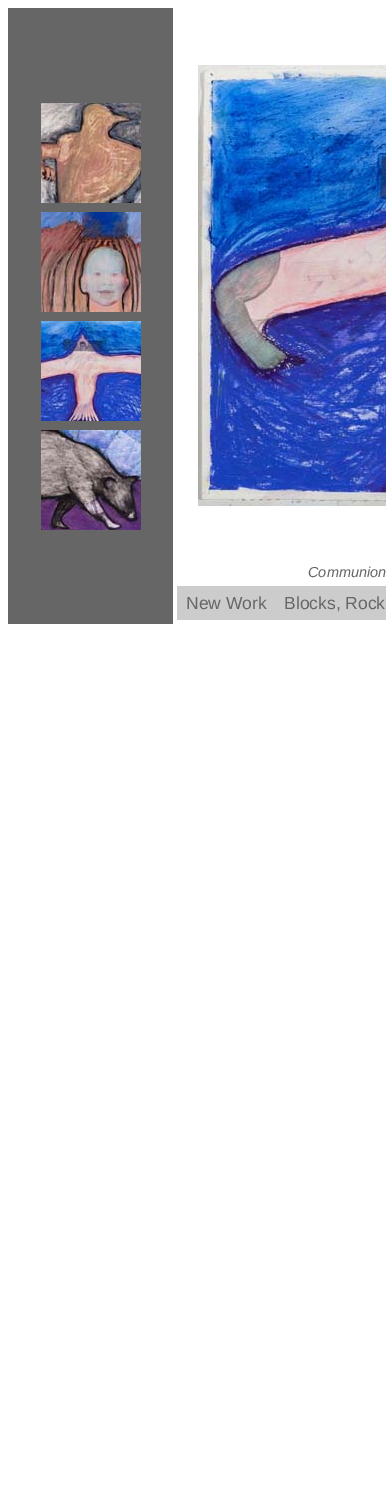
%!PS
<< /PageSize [386 1504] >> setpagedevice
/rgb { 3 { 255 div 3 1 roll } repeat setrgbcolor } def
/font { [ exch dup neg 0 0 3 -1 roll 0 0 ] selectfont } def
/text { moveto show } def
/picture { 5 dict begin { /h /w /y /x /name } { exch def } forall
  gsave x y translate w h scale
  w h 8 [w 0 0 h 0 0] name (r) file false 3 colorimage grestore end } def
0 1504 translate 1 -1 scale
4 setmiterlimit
255 255 255 rgb
0 0 386 1504 rectfill
102 102 102 rgb
8 8 165 616 rectfill
(img_01.rgb) 41 103 100 100 picture
(img_02.rgb) 41 212 100 100 picture
(img_03.rgb) 41 321 100 100 picture
(img_04.rgb) 41 430 100 100 picture
(img_05.rgb) 198 65 188 441 picture
204 204 204 rgb
177 586 209 34 rectfill
/LiberationSans-Italic 14.5 font
102 102 102 rgb
(Communion) 308 577 text
/LiberationSans-Regular 17.5 font
(New Work) 186 609 text
(Blocks, Rock) 284 609 text
showpage
